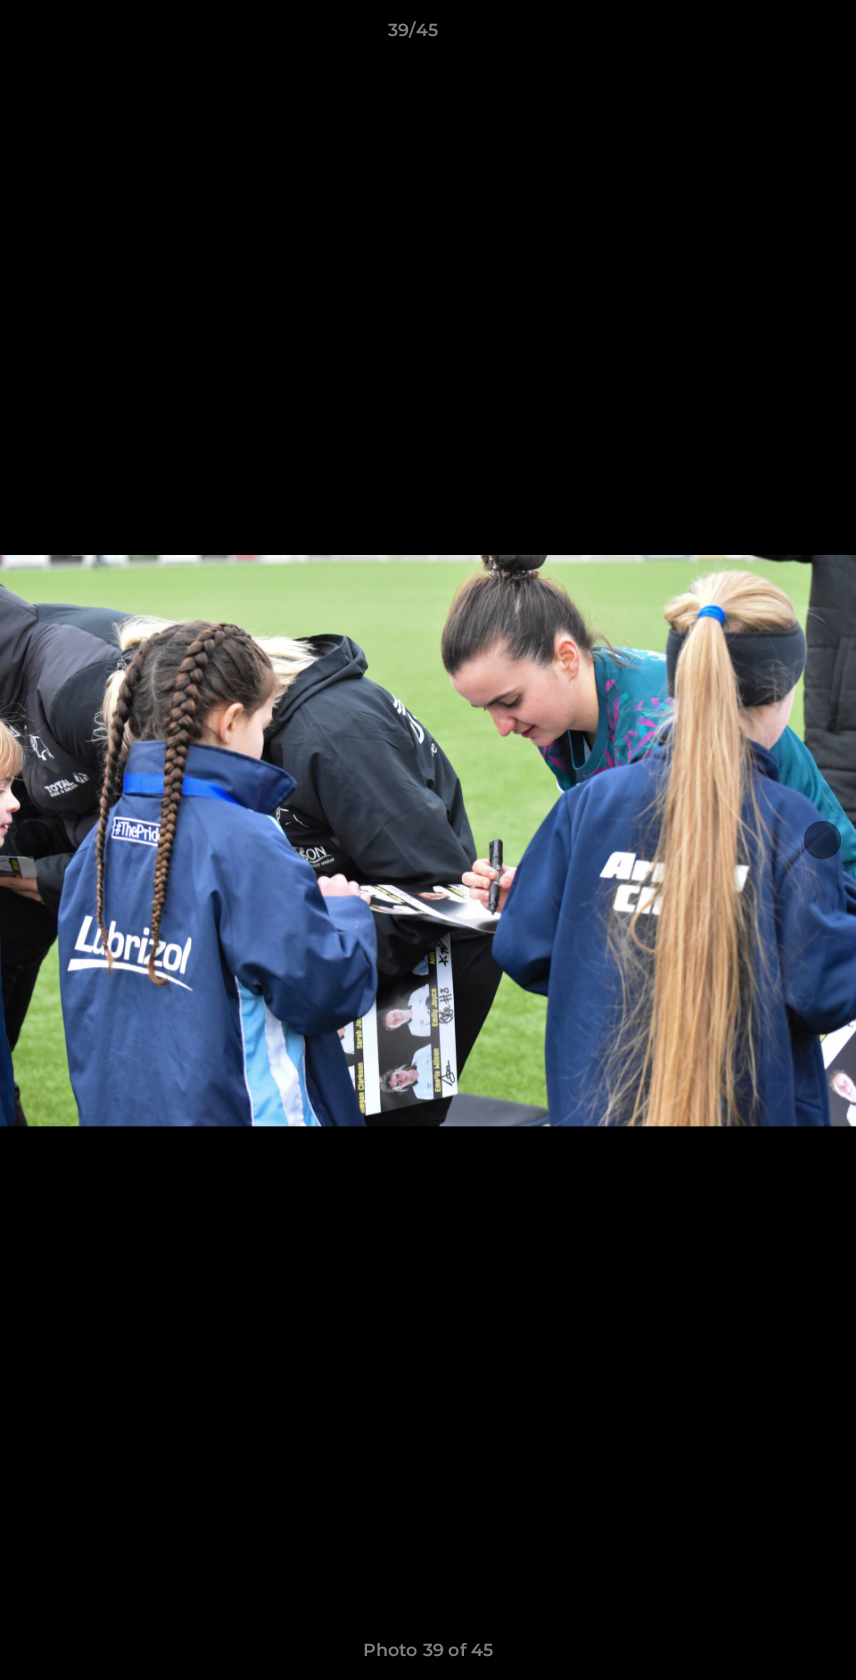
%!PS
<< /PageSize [856 1680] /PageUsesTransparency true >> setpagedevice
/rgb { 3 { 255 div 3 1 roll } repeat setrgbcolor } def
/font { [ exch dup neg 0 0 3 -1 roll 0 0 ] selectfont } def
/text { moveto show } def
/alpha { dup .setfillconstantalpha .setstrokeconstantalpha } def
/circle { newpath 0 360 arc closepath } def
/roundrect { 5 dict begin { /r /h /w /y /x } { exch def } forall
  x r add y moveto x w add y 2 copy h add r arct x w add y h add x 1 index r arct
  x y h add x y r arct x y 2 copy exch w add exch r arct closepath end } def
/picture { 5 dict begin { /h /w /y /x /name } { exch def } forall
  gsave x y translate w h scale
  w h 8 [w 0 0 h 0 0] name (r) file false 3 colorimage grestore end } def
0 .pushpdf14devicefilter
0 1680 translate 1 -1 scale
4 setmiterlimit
0 0 0 rgb
0 0 856 1680 rectfill
(img_01.rgb) 0 555 856 572 picture
0.5 alpha
34 840 19 circle fill
804 821 37 38 18.5 roundrect fill
/Montserrat-SemiBold 17.5 font
1 alpha
128 128 128 rgb
(39/45) 388 36 text
(Photo 39 of 45) 363 1656 text
.poppdf14devicefilter showpage
